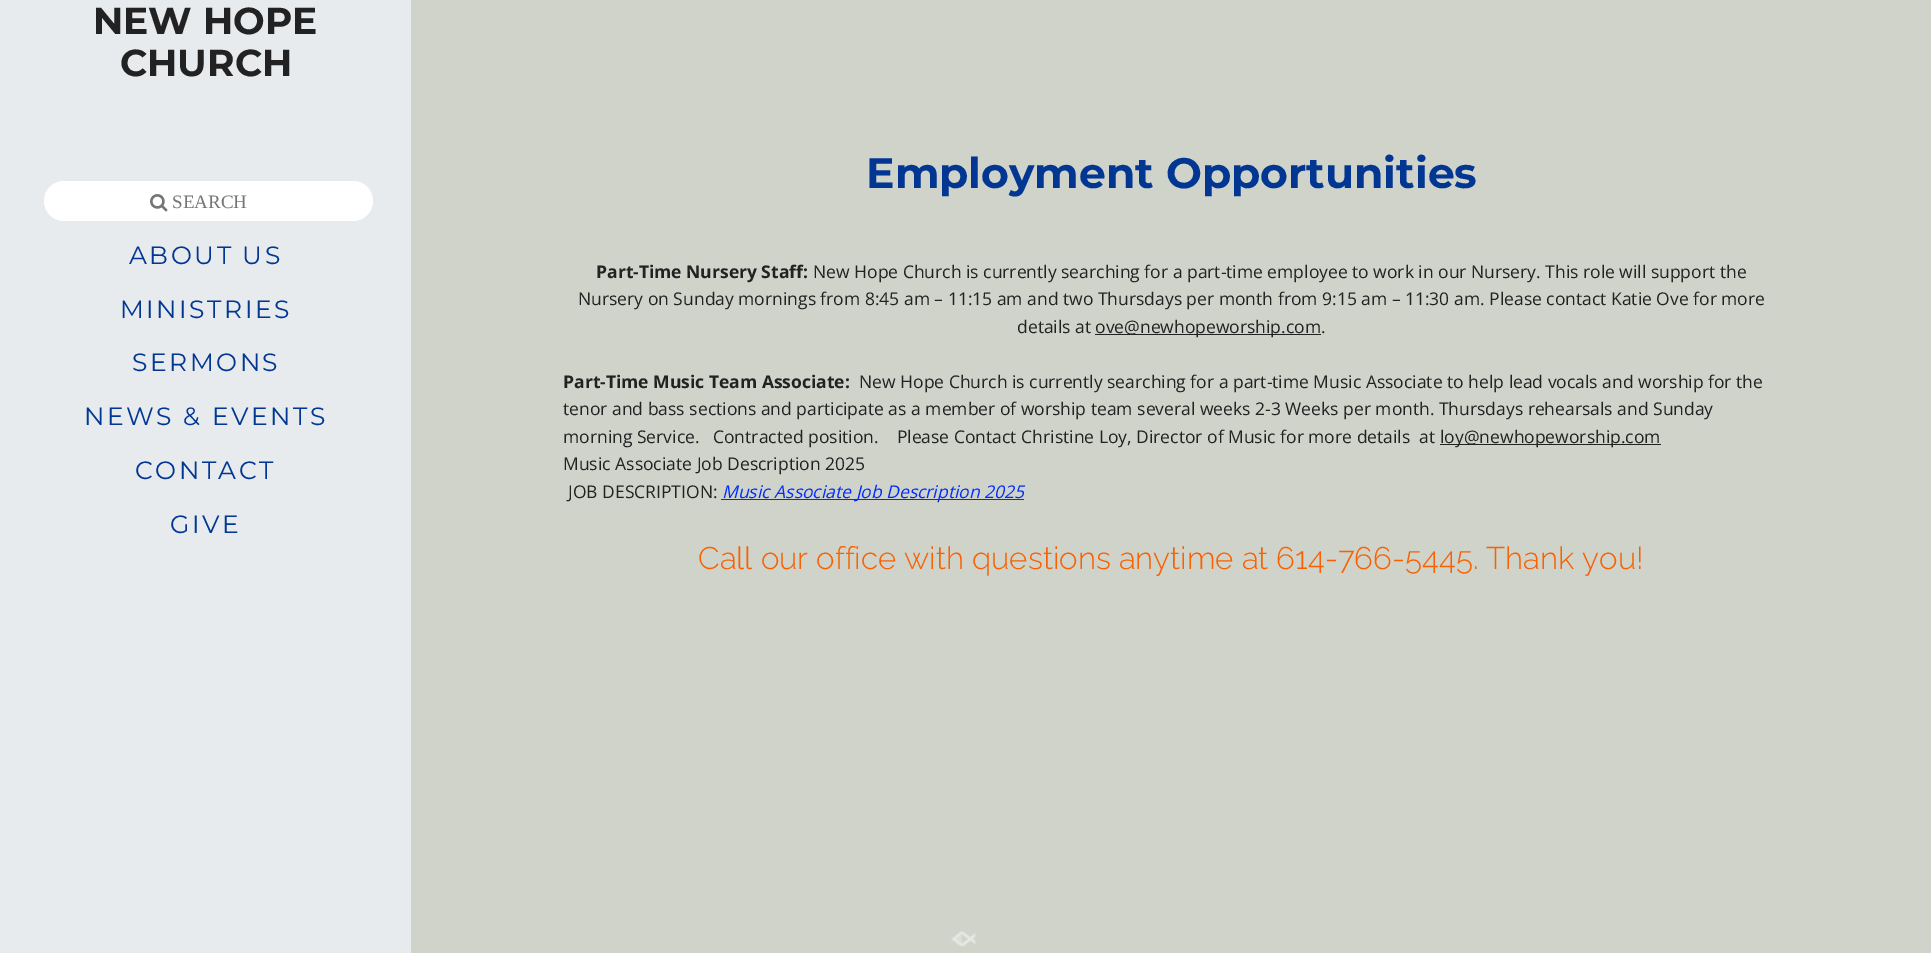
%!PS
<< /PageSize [1931 953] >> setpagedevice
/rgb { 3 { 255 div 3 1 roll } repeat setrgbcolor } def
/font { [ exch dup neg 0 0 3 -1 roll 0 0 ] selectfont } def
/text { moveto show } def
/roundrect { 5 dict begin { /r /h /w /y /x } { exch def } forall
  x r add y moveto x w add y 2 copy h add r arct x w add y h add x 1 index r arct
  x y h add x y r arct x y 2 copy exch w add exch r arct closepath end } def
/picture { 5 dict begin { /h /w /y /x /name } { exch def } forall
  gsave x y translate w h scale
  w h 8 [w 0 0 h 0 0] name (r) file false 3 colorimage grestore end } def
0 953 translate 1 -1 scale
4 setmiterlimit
207 211 201 rgb
0 0 1931 953 rectfill
232 235 237 rgb
0 0 411 953 rectfill
255 255 255 rgb
44 181 329 40 20 roundrect fill
(img_01.rgb) 150 194 18 18 picture
34 34 34 rgb
1095 334 226 1 rectfill
1440 444 221 1 rectfill
0 43 255 rgb
721 499 303 1 rectfill
(img_02.rgb) 951 931 25 16 picture
/Montserrat-Bold 37.5 font
34 34 34 rgb
(NEW HOPE) 93 34 text
(CHURCH) 120 76 text
/LiberationSerif-Regular 19 font
117 117 117 rgb
(SEARCH) 172 208 text
/Montserrat-Regular 25 font
1 55 147 rgb
129 264 moveto 2.5 0 (ABOUT US) ashow
120 318 moveto 2.5 0 (MINISTRIES) ashow
132 371 moveto 2.5 0 (SERMONS) ashow
84 425 moveto 2.5 0 (NEWS & EVENTS) ashow
135 479 moveto 2.5 0 (CONTACT) ashow
170 533 moveto 2.5 0 (GIVE) ashow
/Montserrat-Bold 42.5 font
(Employment Opportunities) 866 188 text
/OpenSans-Bold 17.5 font
34 34 34 rgb
(Part-Time Nursery Staff:) 596 278 text
/OpenSans-Regular 17.5 font
(New Hope Church is currently searching for a part-time employee to work in our Nursery. This role will support the) 813 278 text
(Nursery on Sunday mornings from 8:45 am – 11:15 am and two Thursdays per month from 9:15 am – 11:30 am. Please contact Katie Ove for more) 578 305 text
(details at) 1017 333 text
(ove@newhopeworship.com.) 1095 333 text
/OpenSans-Bold 17.5 font
(Part-Time Music Team Associate:) 563 388 text
/OpenSans-Regular 17.5 font
(New Hope Church is currently searching for a part-time Music Associate to help lead vocals and worship for the) 859 388 text
(tenor and bass sections and participate as a member of worship team several weeks 2-3 Weeks per month. Thursdays rehearsals and Sunday) 563 415 text
(morning Service.   Contracted position.    Please Contact Christine Loy, Director of Music for more details  at) 563 443 text
(loy@newhopeworship.com) 1440 443 text
(Music Associate Job Description 2025) 563 470 text
(JOB DESCRIPTION:) 568 498 text
/OpenSans-Italic 17.5 font
0 43 255 rgb
(Music Associate Job Description 2025) 722 498 text
/Raleway-Light 31.25 font
249 96 1 rgb
(Call our office with questions anytime at 614-766-5445. Thank you!) 698 569 text
showpage
